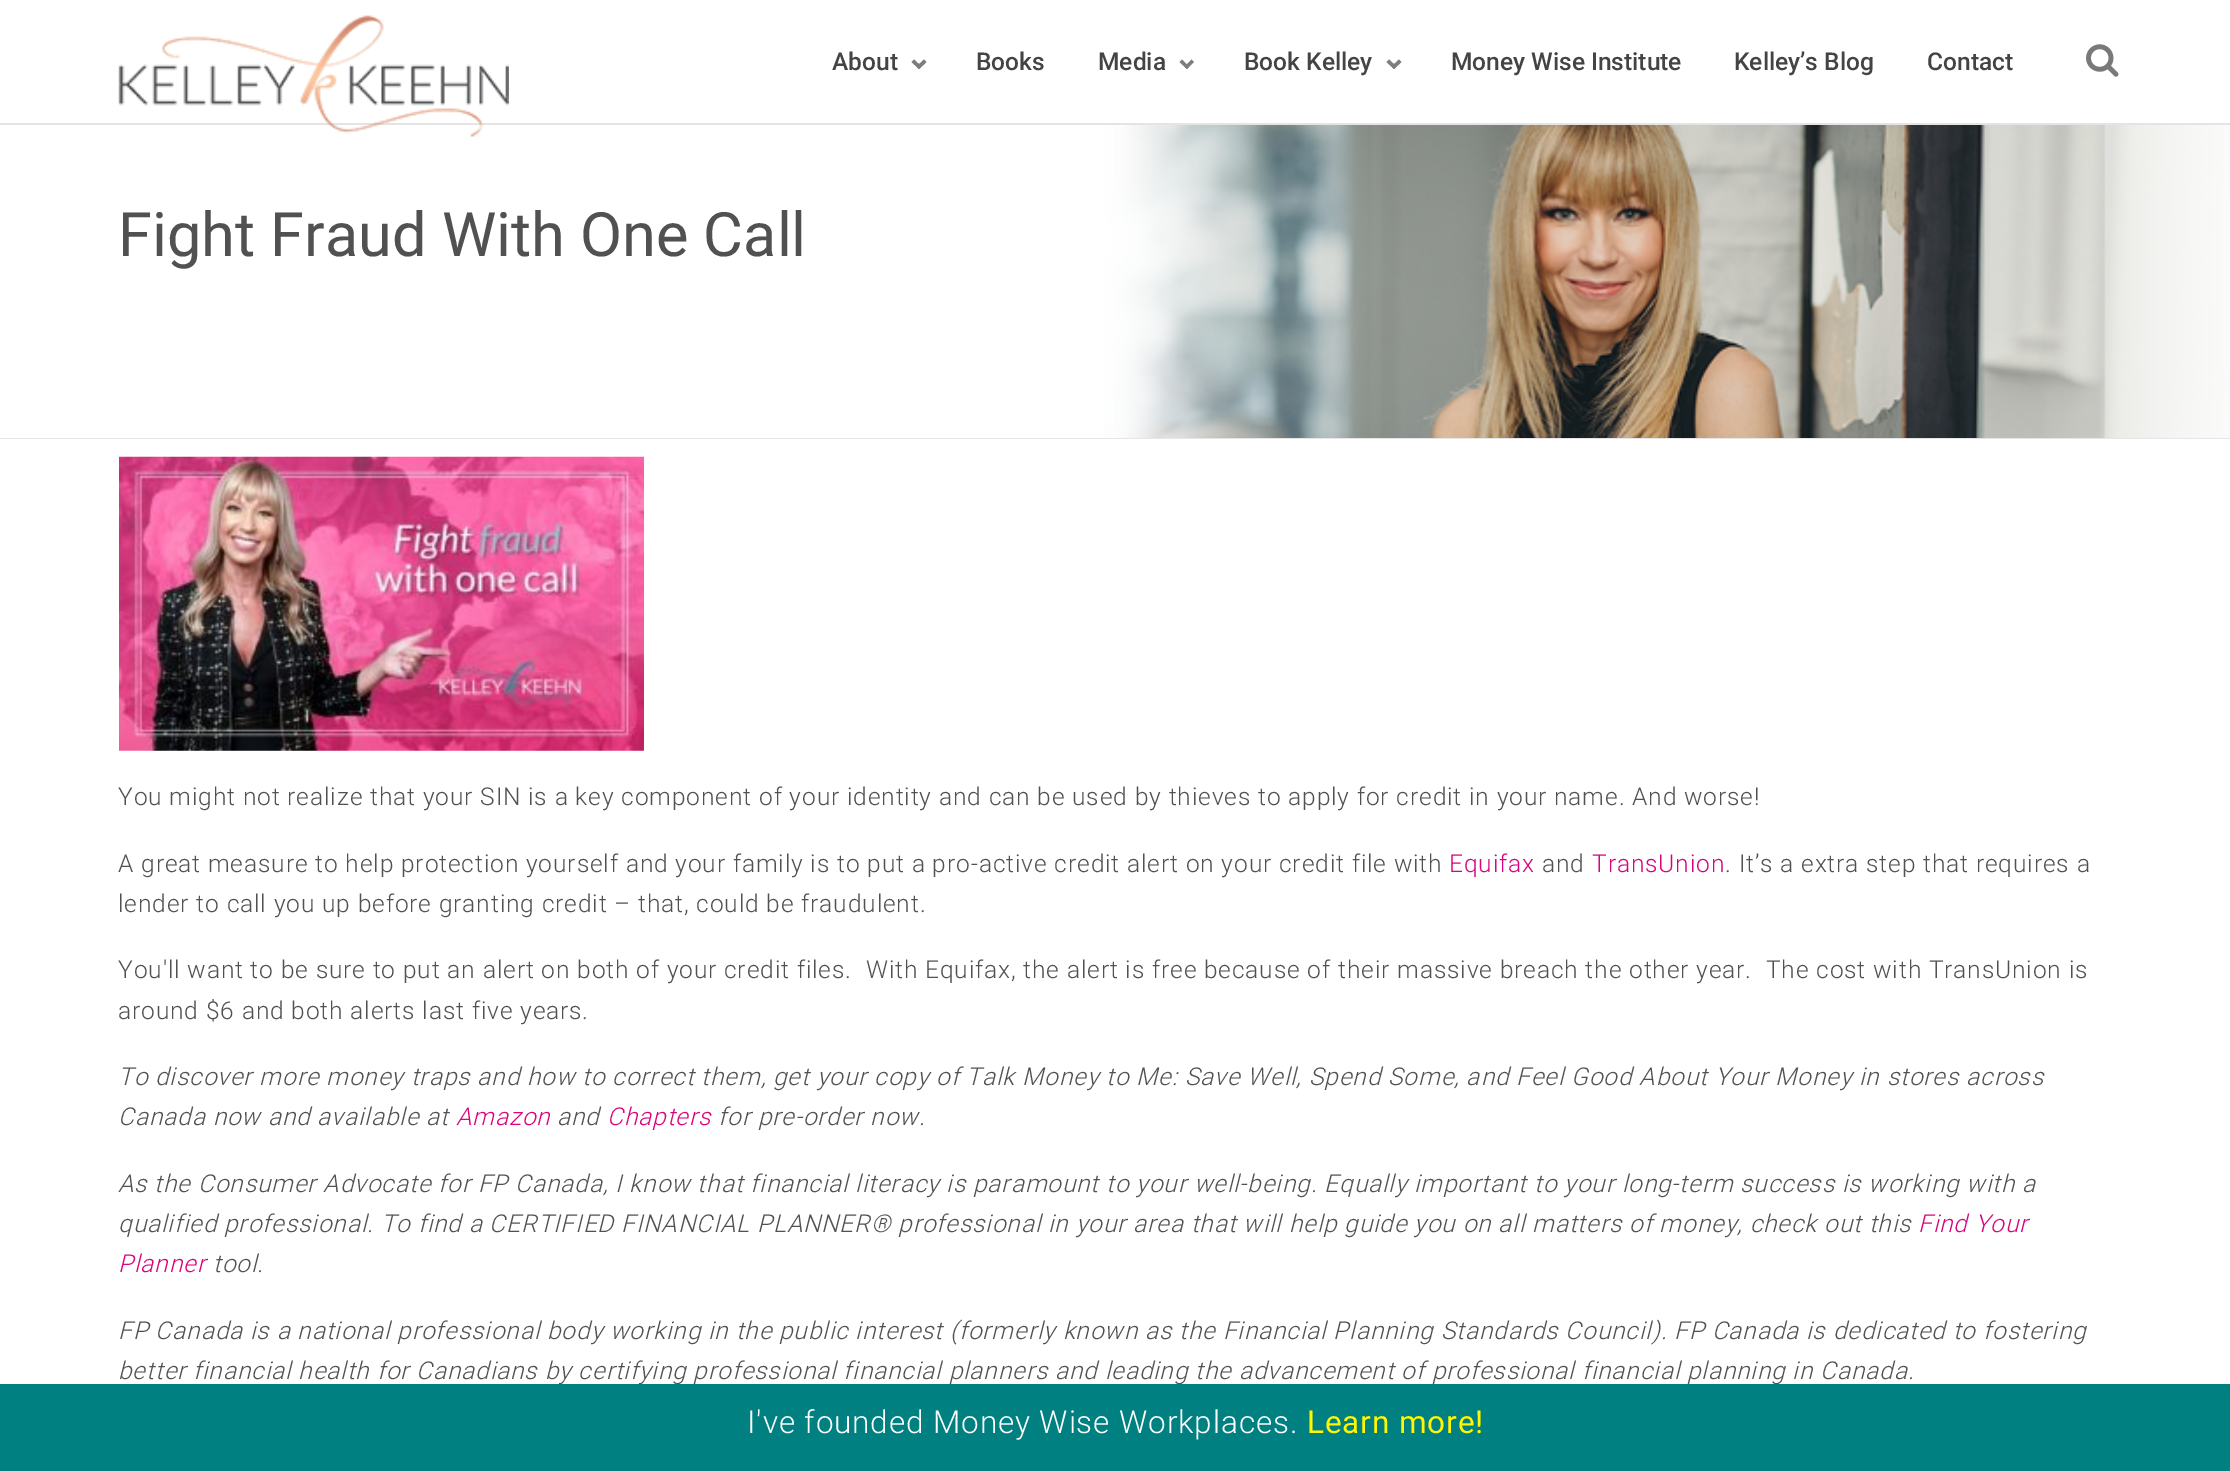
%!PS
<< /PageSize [2230 1471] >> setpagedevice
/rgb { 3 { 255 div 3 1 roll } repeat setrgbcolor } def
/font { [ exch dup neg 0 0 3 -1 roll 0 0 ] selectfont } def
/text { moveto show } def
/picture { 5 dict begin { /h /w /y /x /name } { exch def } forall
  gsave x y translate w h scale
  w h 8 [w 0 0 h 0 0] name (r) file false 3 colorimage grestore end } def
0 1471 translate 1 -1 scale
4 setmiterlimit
255 255 255 rgb
0 0 2230 1471 rectfill
228 228 228 rgb
0 123 2230 2 rectfill
(img_03.rgb) 0 125 2230 313 picture
(img_01.rgb) 118 15 391 122 picture
125 125 125 rgb
926.5 62 moveto -7.5 7 rlineto -2.5 -2.5 rlineto 7.5 -7 rlineto closepath fill
921.5 66.5 moveto -2.5 2.5 rlineto -7.5 -7 rlineto 2.5 -2.5 rlineto closepath fill
1194 62 moveto -7 7 rlineto -2.5 -2.5 rlineto 7 -7 rlineto closepath fill
1189 66.5 moveto -2 2.5 rlineto -7.5 -7 rlineto 2.5 -2.5 rlineto closepath fill
1401.5 62 moveto -7.5 7 rlineto -2.5 -2.5 rlineto 7.5 -7 rlineto closepath fill
1396.5 66.5 moveto -2.5 2.5 rlineto -7.5 -7 rlineto 2.5 -2.5 rlineto closepath fill
(img_02.rgb) 2086 44 33 33 picture
230 230 230 rgb
0 438 2230 1 rectfill
(img_04.rgb) 119 456 525 295 picture
/Roboto-Medium 24.5 font
68 68 68 rgb
(About) 832 70 text
(Books) 976 70 text
(Media) 1098 70 text
(Book Kelley) 1244 70 text
(Money Wise Institute) 1451 70 text
(Kelley’s Blog) 1734 70 text
(Contact) 1927 70 text
/Roboto-Regular 61.25 font
81 81 81 rgb
(Fight Fraud With One Call) 118 256 text
/Roboto-Light 24.5 font
118 805 moveto 0.88 0 (You might not realize that your SIN is a key component of your identity and can be used by thieves to apply for credit in your name. And worse!) ashow
118 872 moveto 0.88 0 (A great measure to help protection yourself and your family is to put a pro-active credit alert on your credit file with) ashow
217 4 125 rgb
1449 872 moveto 0.88 0 (Equifax) ashow
81 81 81 rgb
1542 872 moveto 0.88 0 (and) ashow
217 4 125 rgb
1592 872 moveto 0.88 0 (TransUnion) ashow
81 81 81 rgb
1725 872 moveto 0.88 0 (. It’s a extra step that requires a) ashow
118 912 moveto 0.88 0 (lender to call you up before granting credit – that, could be fraudulent.) ashow
118 978 moveto 0.88 0 (You'll want to be sure to put an alert on both of your credit files.  With Equifax, the alert is free because of their massive breach the other year.  The cost with TransUnion is) ashow
118 1019 moveto 0.88 0 (around $6 and both alerts last five years.) ashow
/Roboto-LightItalic 24.5 font
118 1085 moveto 0.88 0 (To discover more money traps and how to correct them, get your copy of Talk Money to Me: Save Well, Spend Some, and Feel Good About Your Money in stores across) ashow
118 1125 moveto 0.88 0 (Canada now and available at) ashow
217 4 125 rgb
456 1125 moveto 0.88 0 (Amazon) ashow
81 81 81 rgb
557 1125 moveto 0.88 0 (and) ashow
217 4 125 rgb
607 1125 moveto 0.88 0 (Chapters) ashow
81 81 81 rgb
718 1125 moveto 0.88 0 (for pre-order now.) ashow
118 1192 moveto 0.88 0 (As the Consumer Advocate for FP Canada, I know that financial literacy is paramount to your well-being. Equally important to your long-term success is working with a) ashow
118 1232 moveto 0.88 0 (qualified professional. To find a CERTIFIED FINANCIAL PLANNER® professional in your area that will help guide you on all matters of money, check out this) ashow
217 4 125 rgb
1918 1232 moveto 0.88 0 (Find Your) ashow
118 1272 moveto 0.88 0 (Planner) ashow
81 81 81 rgb
213 1272 moveto 0.88 0 (tool.) ashow
118 1339 moveto 0.88 0 (FP Canada is a national professional body working in the public interest \(formerly known as the Financial Planning Standards Council\). FP Canada is dedicated to fostering) ashow
118 1379 moveto 0.88 0 (better financial health for Canadians by certifying professional financial planners and leading the advancement of professional financial planning in Canada.) ashow
0 128 128 rgb
0 1384 2230 87 rectfill
/Roboto-Light 31.5 font
255 255 255 rgb
747 1433 moveto 0.88 0 (I've founded Money Wise Workplaces.) ashow
/Roboto-Regular 31.5 font
255 247 0 rgb
1307 1433 moveto 0.88 0 (Learn more!) ashow
showpage
